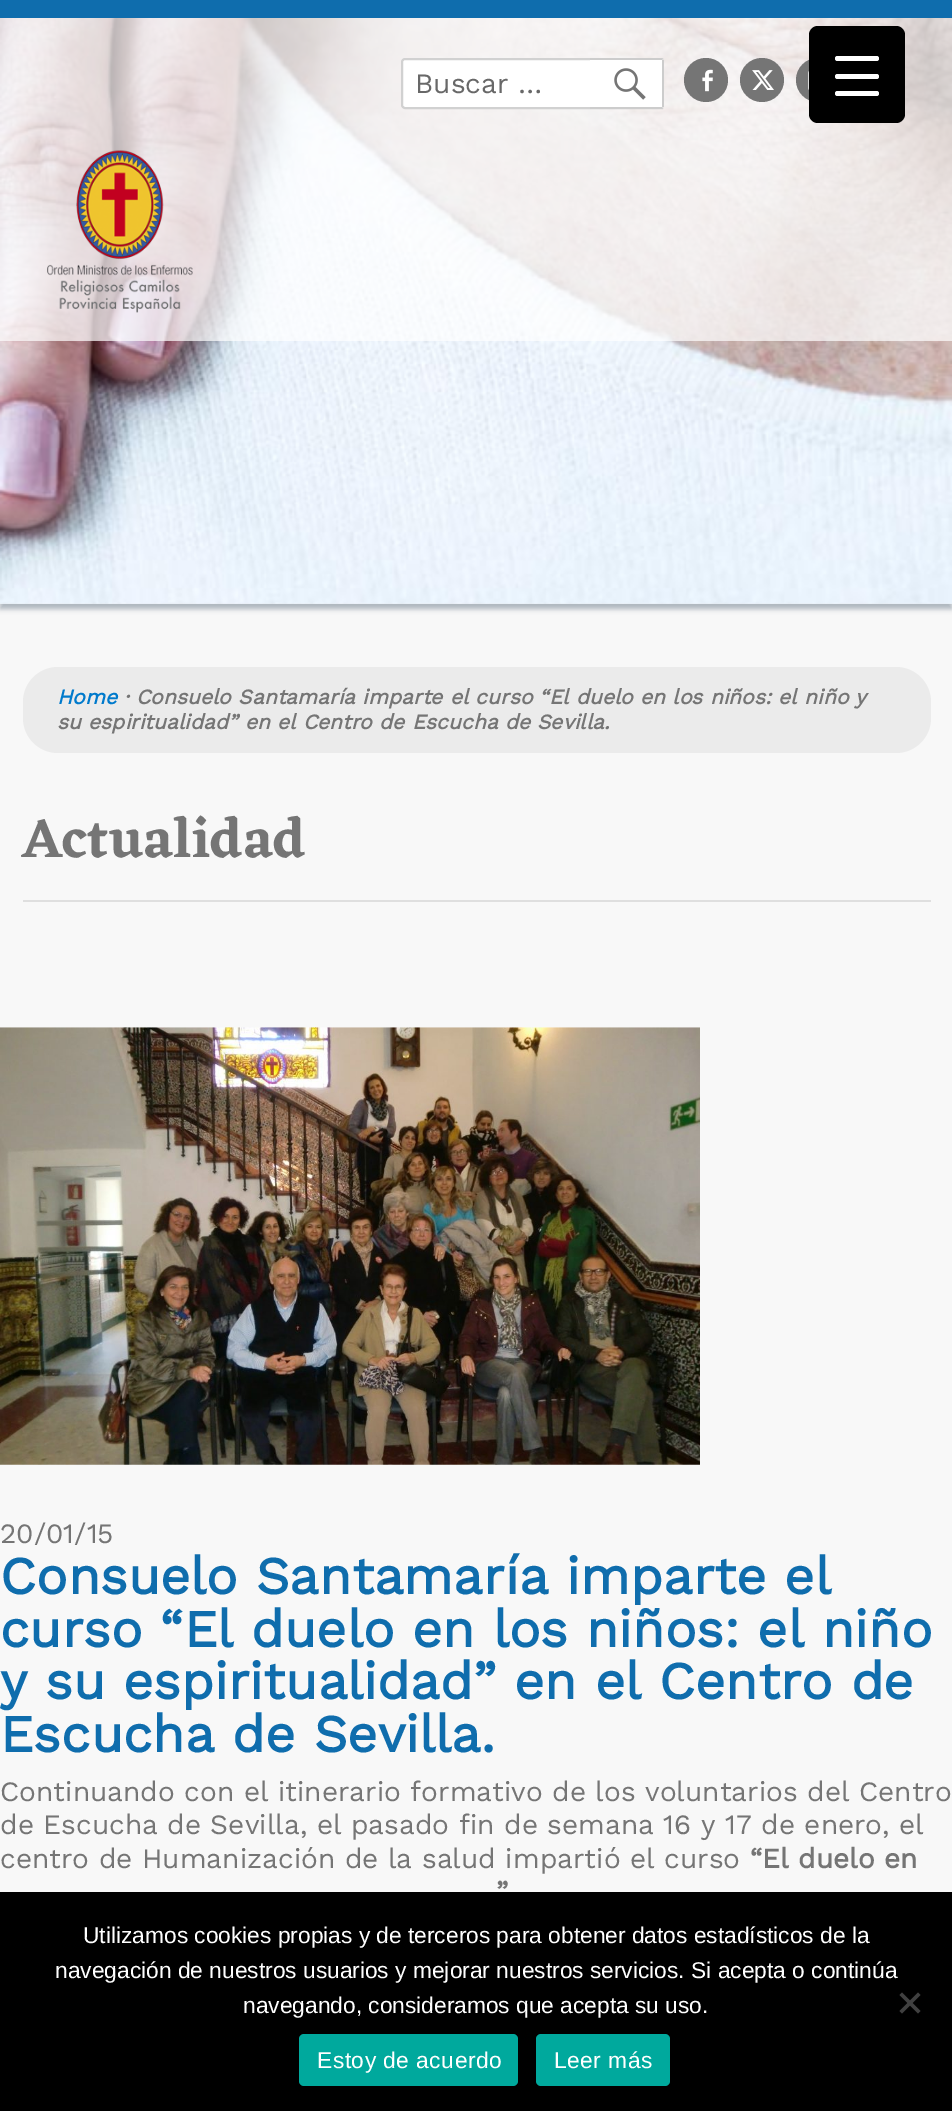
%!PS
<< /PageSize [952 2111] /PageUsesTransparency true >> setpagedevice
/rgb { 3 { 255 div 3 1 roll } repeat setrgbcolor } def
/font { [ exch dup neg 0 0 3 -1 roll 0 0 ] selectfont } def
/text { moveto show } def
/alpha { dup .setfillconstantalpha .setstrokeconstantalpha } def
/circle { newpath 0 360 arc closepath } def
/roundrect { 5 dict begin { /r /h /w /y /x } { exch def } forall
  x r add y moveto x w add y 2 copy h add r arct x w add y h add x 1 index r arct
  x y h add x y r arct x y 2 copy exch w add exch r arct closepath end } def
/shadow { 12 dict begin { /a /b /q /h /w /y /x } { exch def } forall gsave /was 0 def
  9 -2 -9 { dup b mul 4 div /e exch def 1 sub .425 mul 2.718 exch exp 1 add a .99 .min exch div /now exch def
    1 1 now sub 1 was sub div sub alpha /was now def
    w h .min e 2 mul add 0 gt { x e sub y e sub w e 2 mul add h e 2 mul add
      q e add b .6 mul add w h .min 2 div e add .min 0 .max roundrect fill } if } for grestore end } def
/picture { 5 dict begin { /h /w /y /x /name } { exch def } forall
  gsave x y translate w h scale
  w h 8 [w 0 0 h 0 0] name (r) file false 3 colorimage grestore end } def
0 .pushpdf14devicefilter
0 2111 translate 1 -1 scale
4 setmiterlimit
248 248 248 rgb
0 0 952 2111 rectfill
173 181 189 rgb
0 5 952 604 0 2.5 1 shadow
(img_01.rgb) 0 18 952 586 picture
0.7 alpha
255 255 255 rgb
0 18 952 323 rectfill
1 alpha
15 109 173 rgb
0 0 952 18 rectfill
255 255 255 rgb
405 59 moveto 257 0 rlineto 0 49 rlineto -257 0 rlineto -1.5 0 -3 -1.5 -3 -3 rcurveto 0 -43 rlineto 0 -1.5 1.5 -3 3 -3 rcurveto closepath gsave fill grestore
209 209 209 rgb
2 setlinewidth
stroke
255 255 255 rgb
590 58 moveto 69 0 rlineto 2 0 4 2 4 4 rcurveto 0 43 rlineto 0 2 -2 4 -4 4 rcurveto -69 0 rlineto closepath fill
204 204 204 rgb
590 58 72 2 rectfill
662 60 2 47 rectfill
590 107 72 2 rectfill
(img_02.rgb) 614 68 32 32 picture
117 117 117 rgb
706 80 22 circle fill
(img_03.rgb) 702 69 11 23 picture
762 80 22 circle fill
(img_04.rgb) 752 70 22 20 picture
818 80 22 circle fill
(img_05.rgb) 808 71 1 19 picture
(img_06.rgb) 47 150 146 163 picture
0 0 0 rgb
809 26 96 97 9 roundrect fill
255 255 255 rgb
835 74 44 5 2.5 roundrect fill
835 56 44 5 2.5 roundrect fill
835 91 44 5 2.5 roundrect fill
235 235 235 rgb
23 667 908 86 35 roundrect fill
223 223 223 rgb
23 900 908 2 rectfill
(img_07.rgb) 0 1027 700 438 picture
0 0 0 rgb
0 1892 952 219 rectfill
64 64 64 rgb
918 1992.5 moveto 2.5 2.5 rlineto -18.5 18.5 rlineto -2.5 -2.5 rlineto closepath fill
899.5 1995 moveto 2.5 -2.5 rlineto 18.5 18.5 rlineto -2.5 2.5 rlineto closepath fill
0 169 157 rgb
299 2034 219 52 5 roundrect fill
536 2034 134 52 5 roundrect fill
/WorkSans-Regular 28 font
104 104 104 rgb
(Buscar …) 415 93 text
/WorkSans-BoldItalic 21 font
0 122 204 rgb
(Home) 57 704 text
117 117 117 rgb
(· Consuelo Santamaría imparte el curso “El duelo en los niños: el niño y) 124 704 text
(su espiritualidad” en el Centro de Escucha de Sevilla.) 57 729 text
/Eczar-SemiBold 56 font
(Actualidad) 22 857 text
/WorkSans-Regular 28 font
(20/01/15) 0 1543 text
/WorkSans-Bold 52.5 font
15 109 173 rgb
(Consuelo Santamaría imparte el) 0 1594 text
(curso “El duelo en los niños: el niño) 0 1647 text
(y su espiritualidad” en el Centro de) 0 1699 text
(Escucha de Sevilla.) 0 1752 text
/WorkSans-Regular 28 font
117 117 117 rgb
(Continuando con el itinerario formativo de los voluntarios del Centro) 0 1801 text
(de Escucha de Sevilla, el pasado fin de semana 16 y 17 de enero, el) 0 1834 text
(centro de Humanización de la salud impartió el curso) 0 1868 text
/WorkSans-Bold 28 font
(“El duelo en) 750 1868 text
(”) 496 1901 text
/LiberationSans-Regular 22.75 font
255 255 255 rgb
(Utilizamos cookies propias y de terceros para obtener datos estadísticos de la) 83 1943 text
(navegación de nuestros usuarios y mejorar nuestros servicios. Si acepta o continúa) 55 1978 text
(navegando, consideramos que acepta su uso.) 243 2013 text
317 2068 moveto 0.5 0 (Estoy de acuerdo) ashow
554 2068 moveto 0.5 0 (Leer más) ashow
.poppdf14devicefilter showpage
